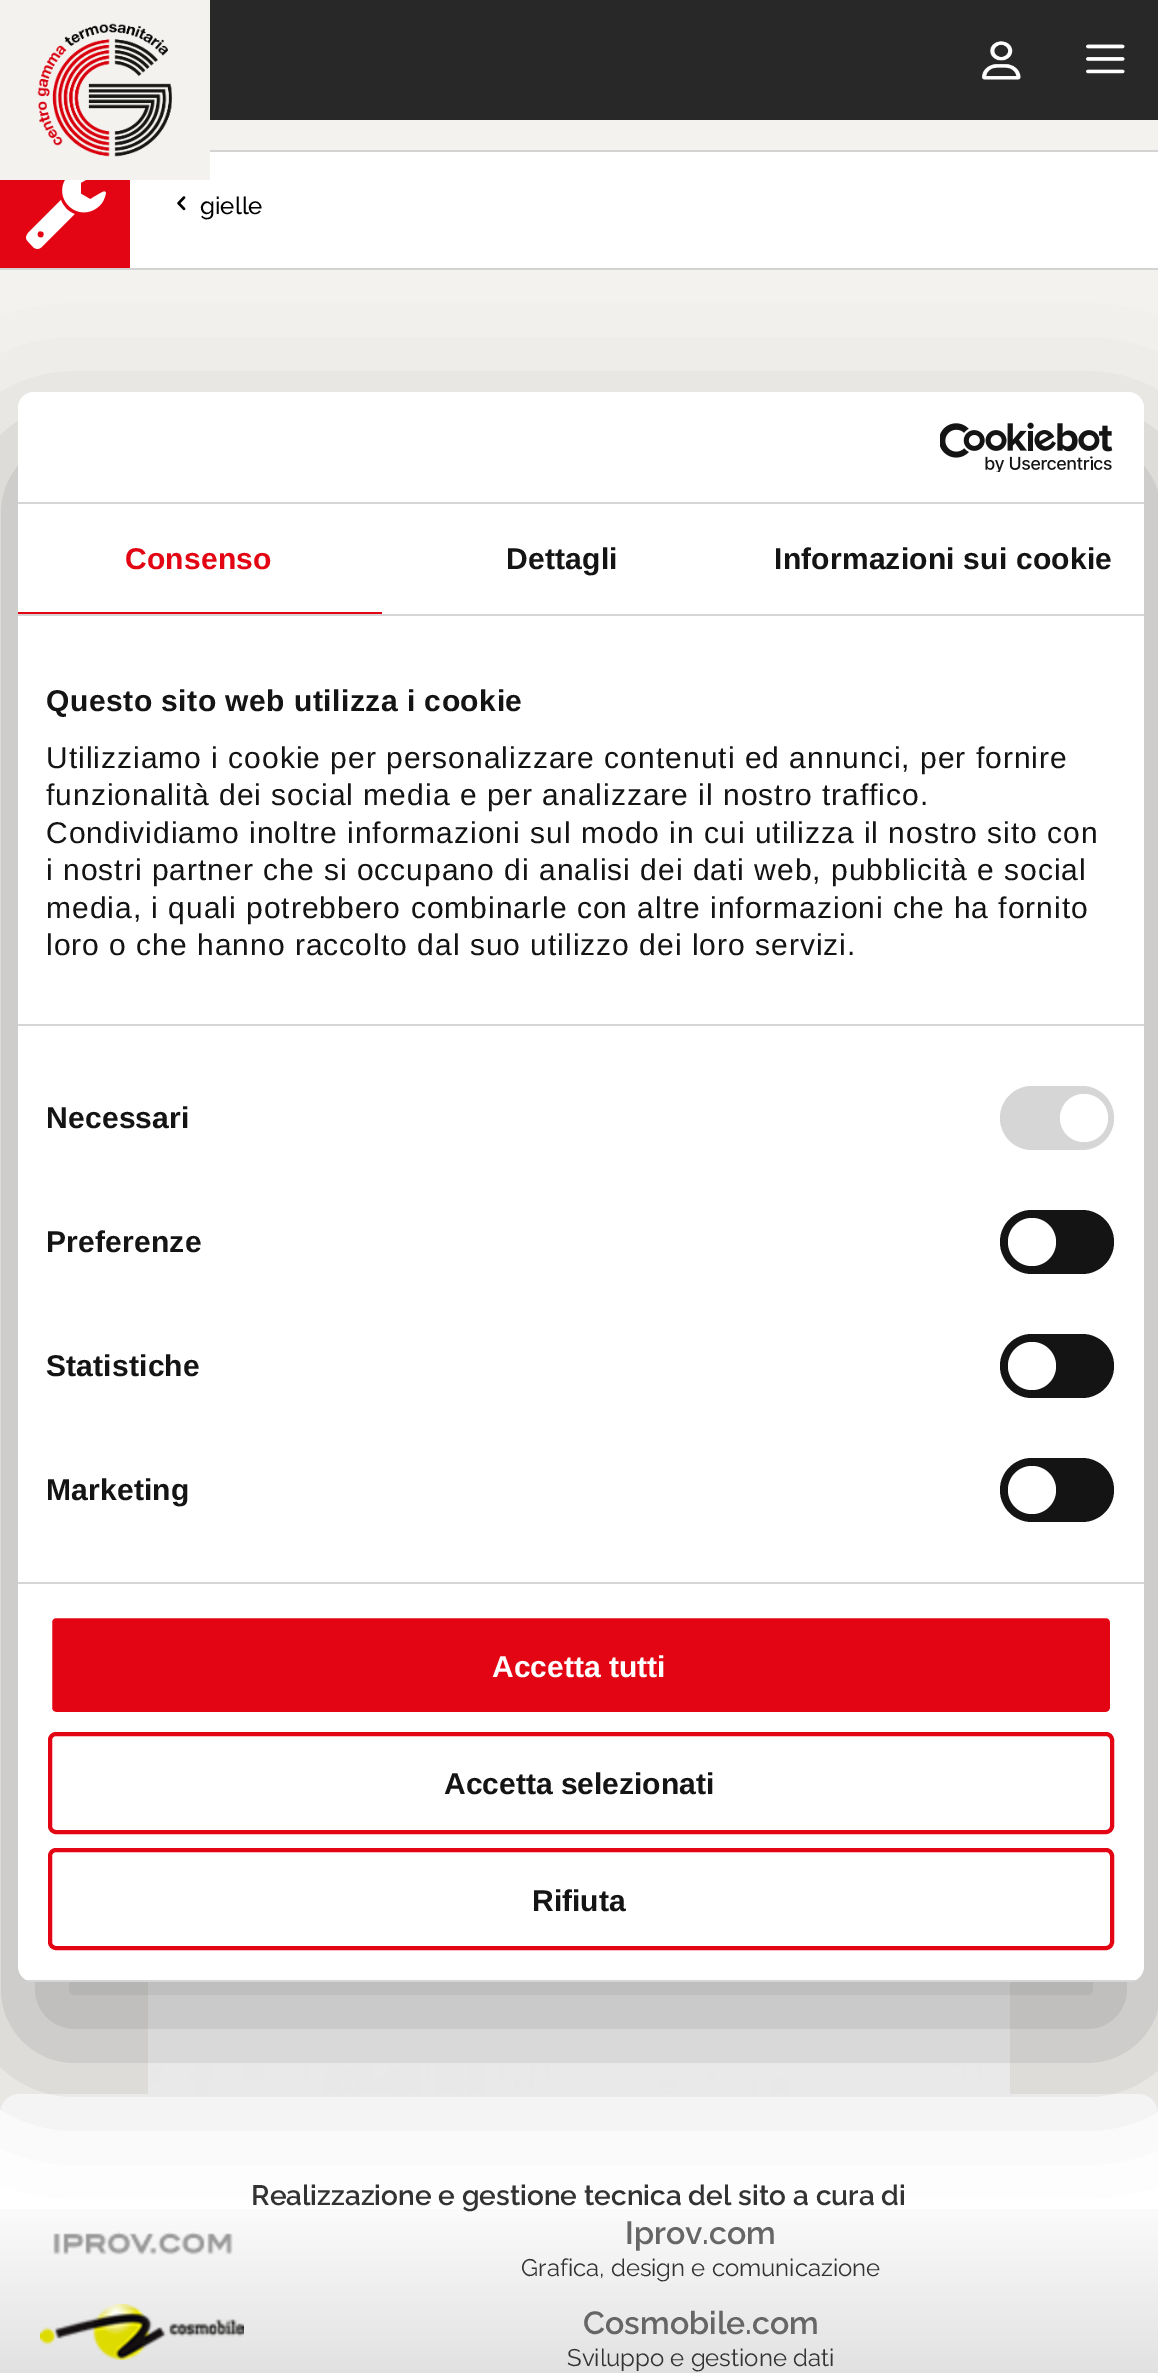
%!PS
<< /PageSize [1158 2373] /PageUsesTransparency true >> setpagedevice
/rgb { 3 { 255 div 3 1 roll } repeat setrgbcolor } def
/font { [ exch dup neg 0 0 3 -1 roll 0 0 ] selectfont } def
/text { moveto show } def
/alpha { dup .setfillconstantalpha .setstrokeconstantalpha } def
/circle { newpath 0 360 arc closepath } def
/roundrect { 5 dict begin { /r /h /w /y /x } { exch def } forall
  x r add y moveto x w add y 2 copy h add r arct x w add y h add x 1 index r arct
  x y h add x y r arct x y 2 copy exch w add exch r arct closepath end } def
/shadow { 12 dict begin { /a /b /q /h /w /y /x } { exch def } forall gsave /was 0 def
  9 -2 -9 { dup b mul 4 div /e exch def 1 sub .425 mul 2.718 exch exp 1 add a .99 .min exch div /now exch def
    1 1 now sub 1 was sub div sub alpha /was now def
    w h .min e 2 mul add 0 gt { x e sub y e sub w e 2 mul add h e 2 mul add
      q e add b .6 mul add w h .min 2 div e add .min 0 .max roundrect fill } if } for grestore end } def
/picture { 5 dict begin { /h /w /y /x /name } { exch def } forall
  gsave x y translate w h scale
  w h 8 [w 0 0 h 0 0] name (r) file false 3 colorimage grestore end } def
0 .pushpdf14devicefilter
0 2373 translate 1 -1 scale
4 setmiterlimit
244 242 238 rgb
0 0 1158 2373 rectfill
255 255 255 rgb
130 152 1028 116 rectfill
244 242 238 rgb
130 152 80 28 rectfill
(img_01.rgb) 37 23 135 134 picture
40 40 40 rgb
210 0 948 120 rectfill
(img_02.rgb) 982 41 39 39 picture
(img_03.rgb) 1086 44 39 30 picture
211 211 211 rgb
210 150 948 2 rectfill
0 268 1158 2 rectfill
227 5 19 rgb
0 180 130 88 rectfill
(img_04.rgb) 26 180 80 69 picture
(img_05.rgb) 177 196 9 15 picture
(img_06.rgb) 148 1982 862 112 picture
255 255 255 rgb
0 2094 1158 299 20 roundrect fill
(img_08.rgb) 0 2209 1158 164 picture
(img_09.rgb) 53 2231 180 24 picture
0 0 0 rgb
18 456 1126 1590 16 68 0.3 shadow
255 255 255 rgb
18 392 1126 1590 16 roundrect fill
214 214 214 rgb
18 502 1126 2 rectfill
(img_07.rgb) 940 422 173 50 picture
18 614 1126 2 rectfill
227 5 19 rgb
18 612 364 2 rectfill
214 214 214 rgb
18 1024 1126 2 rectfill
18 1582 1126 2 rectfill
1000 1086 114 64 32 roundrect fill
255 255 255 rgb
1084 1118 24 circle fill
20 20 20 rgb
1000 1210 114 64 32 roundrect fill
255 255 255 rgb
1032 1242 24 circle fill
20 20 20 rgb
1000 1334 114 64 32 roundrect fill
255 255 255 rgb
1032 1366 24 circle fill
20 20 20 rgb
1000 1458 114 64 32 roundrect fill
255 255 255 rgb
1032 1490 24 circle fill
gsave
18 392 1126 1590 16 roundrect clip newpath
214 214 214 rgb
18 1980 1126 2 rectfill
grestore
227 5 19 rgb
50 1616 1062 98 6 roundrect gsave fill grestore
255 255 255 rgb
4 setlinewidth
stroke
227 5 19 rgb
50 1734 1062 98 6 roundrect stroke
50 1850 1062 98 6 roundrect stroke
(img_10.rgb) 40 2304 204 56 picture
/Raleway-Medium 24 font
0 0 0 rgb
(gielle) 200 214 text
/LiberationSans-Bold 30 font
227 5 19 rgb
125 569 moveto 0.2 0 (Consenso) ashow
20 20 20 rgb
506 569 moveto 0.2 0 (Dettagli) ashow
774 569 moveto 0.2 0 (Informazioni sui cookie) ashow
46 711 moveto 0.5 0 (Questo sito web utilizza i cookie) ashow
/LiberationSans-Regular 30 font
46 768 moveto 1 0 (Utilizziamo i cookie per personalizzare contenuti ed annunci, per fornire) ashow
46 805 moveto 1 0 (funzionalità dei social media e per analizzare il nostro traffico.) ashow
46 843 moveto 1 0 (Condividiamo inoltre informazioni sul modo in cui utilizza il nostro sito con) ashow
46 880 moveto 1 0 (i nostri partner che si occupano di analisi dei dati web, pubblicità e social) ashow
46 918 moveto 1 0 (media, i quali potrebbero combinarle con altre informazioni che ha fornito) ashow
46 955 moveto 1 0 (loro o che hanno raccolto dal suo utilizzo dei loro servizi.) ashow
/LiberationSans-Bold 30 font
46 1128 moveto 0.2 0 (Necessari) ashow
46 1252 moveto 0.2 0 (Preferenze) ashow
46 1376 moveto 0.2 0 (Statistiche) ashow
46 1500 moveto 0.2 0 (Marketing) ashow
255 255 255 rgb
(Accetta tutti) 492 1677 text
20 20 20 rgb
(Accetta selezionati) 444 1794 text
(Rifiuta) 532 1911 text
/Raleway-SemiBold 28 font
51 51 51 rgb
(Realizzazione e gestione tecnica del sito a cura di) 251 2205 text
/Raleway-SemiBold 32 font
102 102 102 rgb
(Iprov.com) 625 2244 text
/Raleway-Regular 24 font
51 51 51 rgb
(Grafica, design e comunicazione) 521 2276 text
/Raleway-SemiBold 32 font
102 102 102 rgb
(Cosmobile.com) 583 2334 text
/Raleway-Regular 24 font
51 51 51 rgb
(Sviluppo e gestione dati) 567 2366 text
.poppdf14devicefilter showpage
